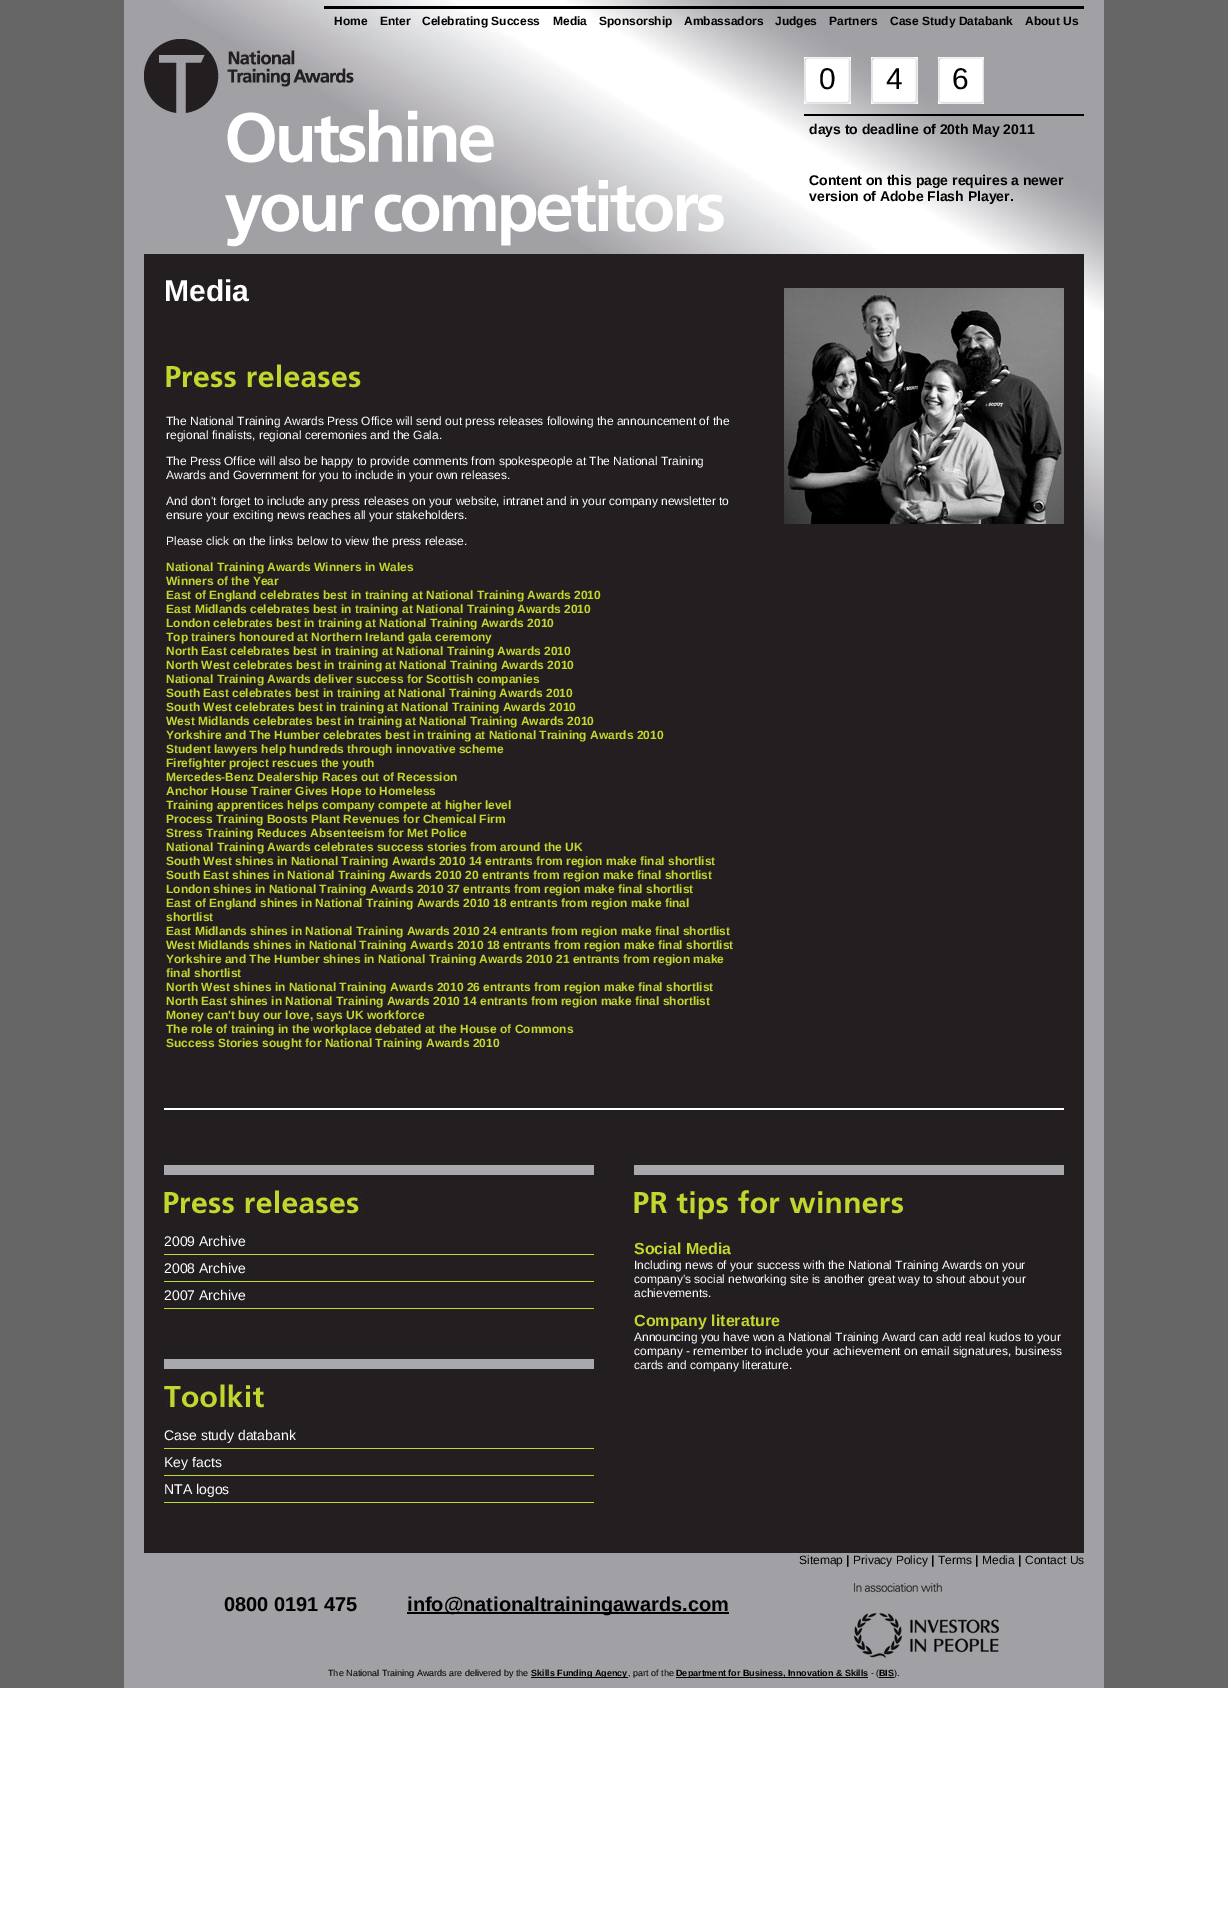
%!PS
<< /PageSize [1228 1916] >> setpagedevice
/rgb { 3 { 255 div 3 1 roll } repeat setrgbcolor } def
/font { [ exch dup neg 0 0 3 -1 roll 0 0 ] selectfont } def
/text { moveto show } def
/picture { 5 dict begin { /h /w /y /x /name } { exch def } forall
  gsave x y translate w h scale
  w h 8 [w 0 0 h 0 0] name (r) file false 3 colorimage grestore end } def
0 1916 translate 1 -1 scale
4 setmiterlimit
255 255 255 rgb
0 0 1228 1916 rectfill
102 102 102 rgb
0 0 1228 1688 rectfill
161 160 164 rgb
124 0 980 1688 rectfill
(img_01.rgb) 170 0 934 542 picture
(img_02.rgb) 141 33 583 214 picture
0 0 0 rgb
324 6 760 3 rectfill
(img_03.rgb) 804 57 180 47 picture
804 114 280 2 rectfill
35 31 32 rgb
144 254 940 1299 rectfill
(img_04.rgb) 784 288 280 236 picture
(img_05.rgb) 166 357 200 32 picture
255 255 255 rgb
164 1108 900 2 rectfill
167 169 172 rgb
164 1165 430 10 rectfill
(img_05.rgb) 164 1183 200 32 picture
193 216 47 rgb
164 1254 430 1 rectfill
164 1281 430 1 rectfill
164 1308 430 1 rectfill
167 169 172 rgb
164 1359 430 10 rectfill
(img_06.rgb) 164 1377 104 32 picture
193 216 47 rgb
164 1448 430 1 rectfill
164 1475 430 1 rectfill
164 1502 430 1 rectfill
167 169 172 rgb
634 1165 430 10 rectfill
(img_07.rgb) 634 1183 272 40 picture
0 0 0 rgb
407 1612 322 2 rectfill
(img_08.rgb) 854 1583 145 75 picture
531 1677 97 1 rectfill
676 1677 192 1 rectfill
879 1677 15 1 rectfill
/LiberationSans-Bold 12 font
(Home) 334 25 text
(Enter) 380 25 text
(Celebrating Success) 422 25 text
(Media) 553 25 text
(Sponsorship) 599 25 text
(Ambassadors) 684 25 text
(Judges) 775 25 text
(Partners) 829 25 text
(Case Study Databank) 890 25 text
(About Us) 1025 25 text
/LiberationSans-Regular 30 font
819 89 moveto 50 0 (046) ashow
/LiberationSans-Bold 14 font
(days to deadline of 20th May 2011) 809 134 text
(Content on this page requires a newer) 809 185 text
(version of Adobe Flash Player.) 809 201 text
/LiberationSans-Bold 30 font
255 255 255 rgb
(Media) 164 301 text
/LiberationSans-Regular 12 font
(The National Training Awards Press Office will send out press releases following the announcement of the) 166 425 text
(regional finalists, regional ceremonies and the Gala.) 166 439 text
(The Press Office will also be happy to provide comments from spokespeople at The National Training) 166 465 text
(Awards and Government for you to include in your own releases.) 166 479 text
(And don't forget to include any press releases on your website, intranet and in your company newsletter to) 166 505 text
(ensure your exciting news reaches all your stakeholders.) 166 519 text
(Please click on the links below to view the press release.) 166 545 text
/LiberationSans-Bold 12 font
193 216 47 rgb
(National Training Awards Winners in Wales) 166 571 text
(Winners of the Year) 166 585 text
(East of England celebrates best in training at National Training Awards 2010) 166 599 text
(East Midlands celebrates best in training at National Training Awards 2010) 166 613 text
(London celebrates best in training at National Training Awards 2010) 166 627 text
(Top trainers honoured at Northern Ireland gala ceremony) 166 641 text
(North East celebrates best in training at National Training Awards 2010) 166 655 text
(North West celebrates best in training at National Training Awards 2010) 166 669 text
(National Training Awards deliver success for Scottish companies) 166 683 text
(South East celebrates best in training at National Training Awards 2010) 166 697 text
(South West celebrates best in training at National Training Awards 2010) 166 711 text
(West Midlands celebrates best in training at National Training Awards 2010) 166 725 text
(Yorkshire and The Humber celebrates best in training at National Training Awards 2010) 166 739 text
(Student lawyers help hundreds through innovative scheme) 166 753 text
(Firefighter project rescues the youth) 166 767 text
(Mercedes-Benz Dealership Races out of Recession) 166 781 text
(Anchor House Trainer Gives Hope to Homeless) 166 795 text
(Training apprentices helps company compete at higher level) 166 809 text
(Process Training Boosts Plant Revenues for Chemical Firm) 166 823 text
(Stress Training Reduces Absenteeism for Met Police) 166 837 text
(National Training Awards celebrates success stories from around the UK) 166 851 text
(South West shines in National Training Awards 2010 14 entrants from region make final shortlist) 166 865 text
(South East shines in National Training Awards 2010 20 entrants from region make final shortlist) 166 879 text
(London shines in National Training Awards 2010 37 entrants from region make final shortlist) 166 893 text
(East of England shines in National Training Awards 2010 18 entrants from region make final) 166 907 text
(shortlist) 166 921 text
(East Midlands shines in National Training Awards 2010 24 entrants from region make final shortlist) 166 935 text
(West Midlands shines in National Training Awards 2010 18 entrants from region make final shortlist) 166 949 text
(Yorkshire and The Humber shines in National Training Awards 2010 21 entrants from region make) 166 963 text
(final shortlist) 166 977 text
(North West shines in National Training Awards 2010 26 entrants from region make final shortlist) 166 991 text
(North East shines in National Training Awards 2010 14 entrants from region make final shortlist) 166 1005 text
(Money can't buy our love, says UK workforce) 166 1019 text
(The role of training in the workplace debated at the House of Commons) 166 1033 text
(Success Stories sought for National Training Awards 2010) 166 1047 text
/LiberationSans-Regular 14 font
255 255 255 rgb
(2009 Archive) 164 1246 text
(2008 Archive) 164 1273 text
(2007 Archive) 164 1300 text
(Case study databank) 164 1440 text
(Key facts) 164 1467 text
(NTA logos) 164 1494 text
/LiberationSans-Bold 16 font
193 216 47 rgb
(Social Media) 634 1254 text
/LiberationSans-Regular 12 font
255 255 255 rgb
(Including news of your success with the National Training Awards on your) 634 1269 text
(company's social networking site is another great way to shout about your) 634 1283 text
(achievements.) 634 1297 text
/LiberationSans-Bold 16 font
193 216 47 rgb
(Company literature) 634 1326 text
/LiberationSans-Regular 12 font
255 255 255 rgb
(Announcing you have won a National Training Award can add real kudos to your) 634 1341 text
(company - remember to include your achievement on email signatures, business) 634 1355 text
(cards and company literature.) 634 1369 text
0 0 0 rgb
(Sitemap) 799 1564 text
/LiberationSans-Bold 12 font
(|) 846 1564 text
/LiberationSans-Regular 12 font
(Privacy Policy) 853 1564 text
/LiberationSans-Bold 12 font
(|) 931 1564 text
/LiberationSans-Regular 12 font
(Terms) 938 1564 text
/LiberationSans-Bold 12 font
(|) 975 1564 text
/LiberationSans-Regular 12 font
(Media) 982 1564 text
/LiberationSans-Bold 12 font
(|) 1018 1564 text
/LiberationSans-Regular 12 font
(Contact Us) 1025 1564 text
/LiberationSans-Bold 20 font
(0800 0191 475) 224 1611 text
(info@nationaltrainingawards.com) 407 1611 text
/LiberationSans-Regular 9 font
(The National Training Awards are delivered by the) 328 1676 text
/LiberationSans-Bold 9 font
(Skills Funding Agency) 531 1676 text
/LiberationSans-Regular 9 font
(, part of the) 628 1676 text
/LiberationSans-Bold 9 font
(Department for Business, Innovation & Skills) 676 1676 text
/LiberationSans-Regular 9 font
(- \() 871 1676 text
/LiberationSans-Bold 9 font
(BIS) 879 1676 text
/LiberationSans-Regular 9 font
(\).) 894 1676 text
showpage
